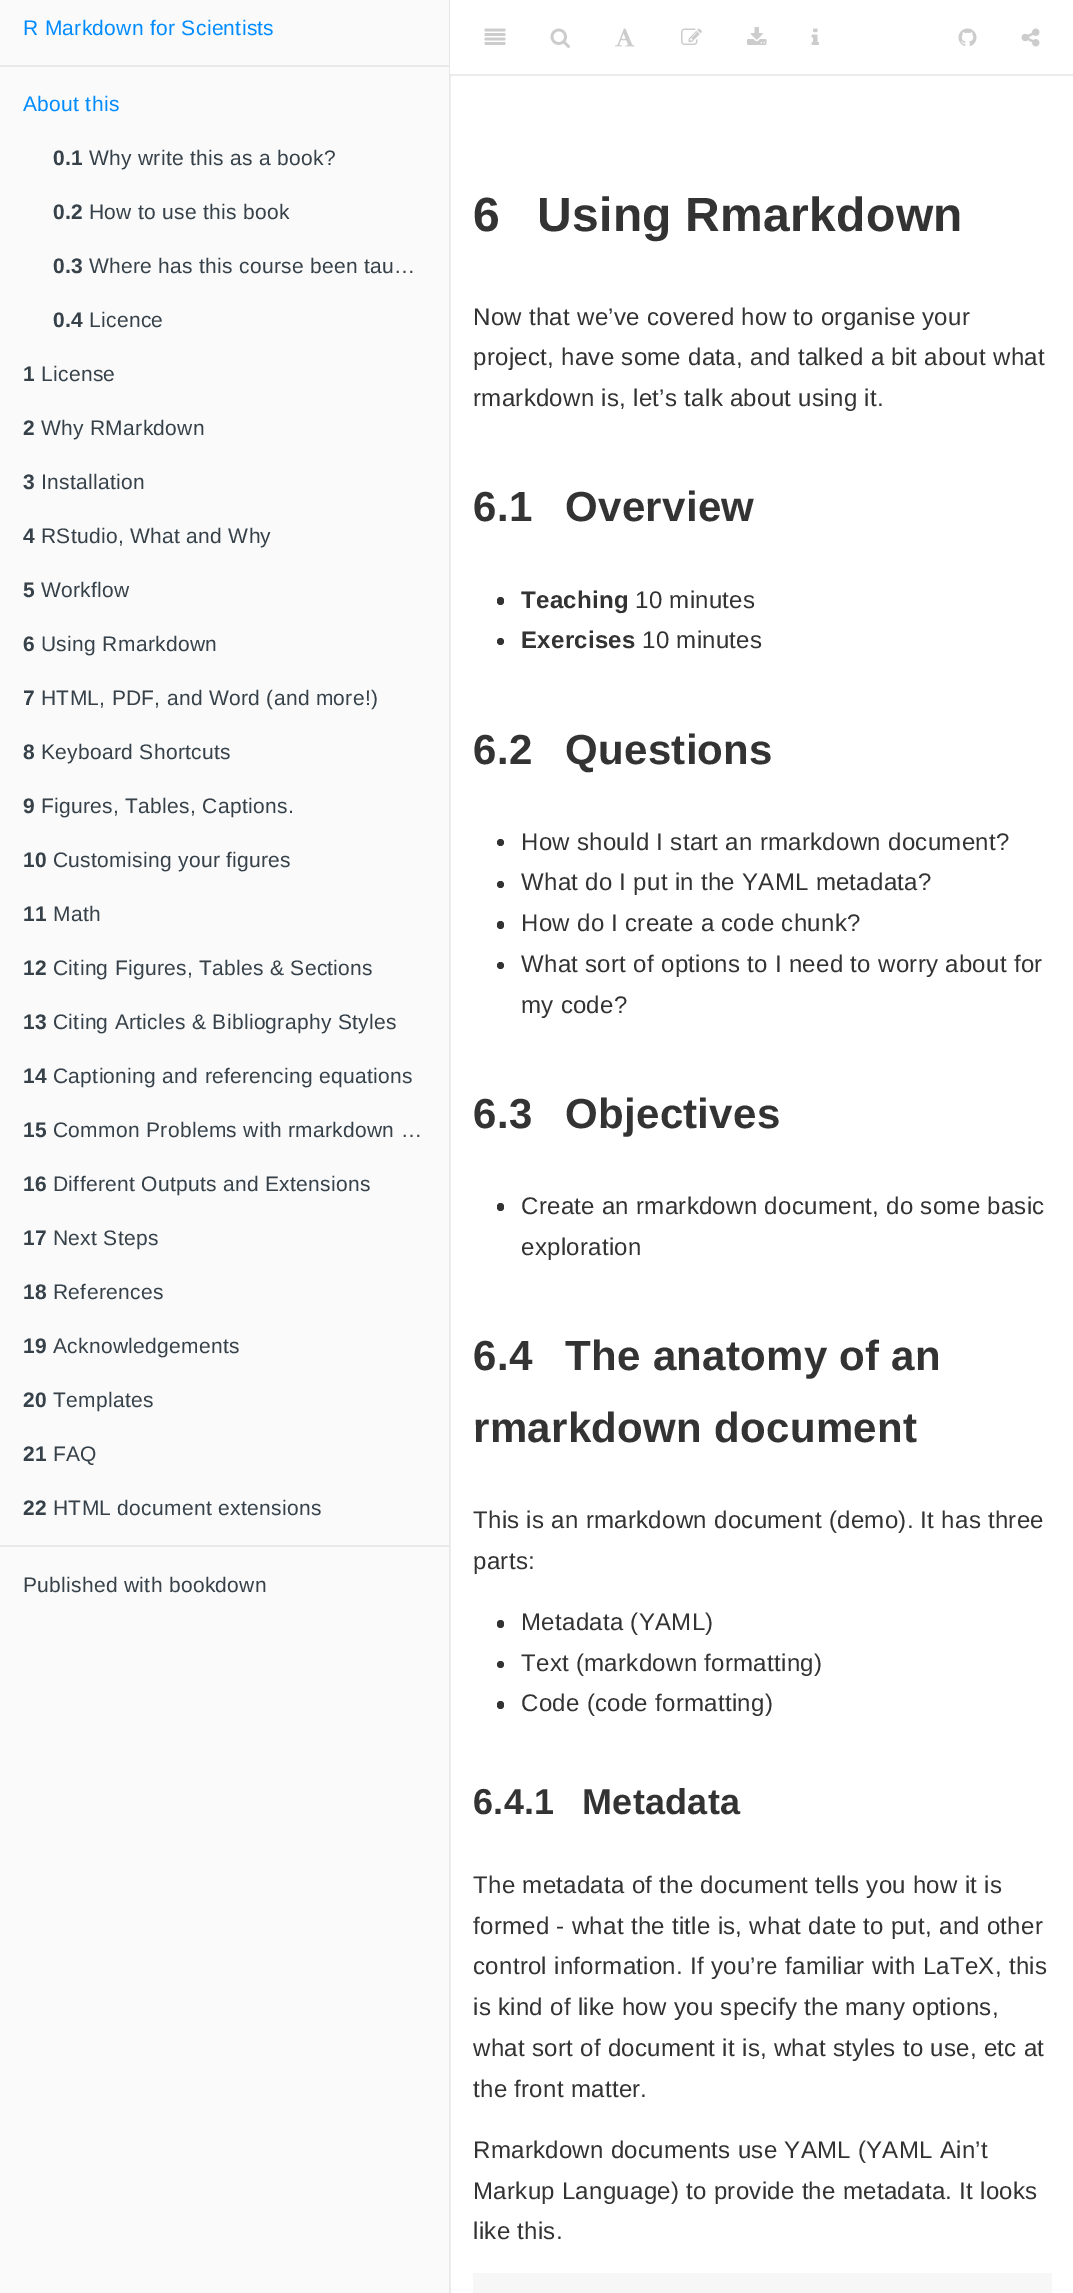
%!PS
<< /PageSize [1073 2293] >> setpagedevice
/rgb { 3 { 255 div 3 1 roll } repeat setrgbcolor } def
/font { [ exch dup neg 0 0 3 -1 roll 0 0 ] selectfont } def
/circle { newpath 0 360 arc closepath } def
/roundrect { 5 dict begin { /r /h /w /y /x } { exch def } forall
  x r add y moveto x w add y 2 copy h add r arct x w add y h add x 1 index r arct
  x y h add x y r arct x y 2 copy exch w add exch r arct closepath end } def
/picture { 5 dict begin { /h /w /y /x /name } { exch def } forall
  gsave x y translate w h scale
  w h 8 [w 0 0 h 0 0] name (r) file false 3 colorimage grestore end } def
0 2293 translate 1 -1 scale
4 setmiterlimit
255 255 255 rgb
0 0 1073 2293 rectfill
237 237 237 rgb
450 75 623 1 rectfill
450 76 1 2217 rectfill
220 220 220 rgb
450 74 1 2 rectfill
250 250 250 rgb
0 0 449 2293 rectfill
232 232 232 rgb
449 0 1 2293 rectfill
233 233 233 rgb
0 65 449 2 rectfill
0 1545 449 2 rectfill
237 237 237 rgb
450 74 623 1 rectfill
(img_01.rgb) 484 28 22 17 picture
(img_02.rgb) 550 28 20 20 picture
(img_03.rgb) 615 28 20 19 picture
(img_04.rgb) 681 28 21 17 picture
(img_05.rgb) 747 27 20 18 picture
(img_06.rgb) 811 28 8 17 picture
(img_07.rgb) 958 28 19 18 picture
(img_08.rgb) 1021 28 19 19 picture
51 51 51 rgb
497 597 7 8 3.5 roundrect fill
500.5 641.5 3.5 circle fill
500.5 842.5 3.5 circle fill
500.5 884.5 3.5 circle fill
497 921 7 8 3.5 roundrect fill
500.5 965.5 3.5 circle fill
497 1203 7 8 3.5 roundrect fill
497 1620 7 8 3.5 roundrect fill
500.5 1664.5 3.5 circle fill
497 1701 7 8 3.5 roundrect fill
247 247 247 rgb
473 2273 579 20 rectfill
/LiberationSans-Regular 21 font
0 140 255 rgb
23 35 moveto 0.3 0 (R Markdown for Scientists) ashow
23 111 moveto 0.3 0 (About this) ashow
/LiberationSans-Bold 21 font
54 65 73 rgb
53 165 moveto 0.3 0 (0.1) ashow
/LiberationSans-Regular 21 font
89 165 moveto 0.3 0 (Why write this as a book?) ashow
/LiberationSans-Bold 21 font
53 219 moveto 0.3 0 (0.2) ashow
/LiberationSans-Regular 21 font
89 219 moveto 0.3 0 (How to use this book) ashow
/LiberationSans-Bold 21 font
53 273 moveto 0.3 0 (0.3) ashow
/LiberationSans-Regular 21 font
89 273 moveto 0.3 0 (Where has this course been tau…) ashow
/LiberationSans-Bold 21 font
53 327 moveto 0.3 0 (0.4) ashow
/LiberationSans-Regular 21 font
89 327 moveto 0.3 0 (Licence) ashow
/LiberationSans-Bold 21 font
23 381 moveto 0.3 0 (1) ashow
/LiberationSans-Regular 21 font
41 381 moveto 0.3 0 (License) ashow
/LiberationSans-Bold 21 font
23 435 moveto 0.3 0 (2) ashow
/LiberationSans-Regular 21 font
41 435 moveto 0.3 0 (Why RMarkdown) ashow
/LiberationSans-Bold 21 font
23 489 moveto 0.3 0 (3) ashow
/LiberationSans-Regular 21 font
41 489 moveto 0.3 0 (Installation) ashow
/LiberationSans-Bold 21 font
23 543 moveto 0.3 0 (4) ashow
/LiberationSans-Regular 21 font
41 543 moveto 0.3 0 (RStudio, What and Why) ashow
/LiberationSans-Bold 21 font
23 597 moveto 0.3 0 (5) ashow
/LiberationSans-Regular 21 font
41 597 moveto 0.3 0 (Workflow) ashow
/LiberationSans-Bold 21 font
23 651 moveto 0.3 0 (6) ashow
/LiberationSans-Regular 21 font
41 651 moveto 0.3 0 (Using Rmarkdown) ashow
/LiberationSans-Bold 21 font
23 705 moveto 0.3 0 (7) ashow
/LiberationSans-Regular 21 font
41 705 moveto 0.3 0 (HTML, PDF, and Word \(and more!\)) ashow
/LiberationSans-Bold 21 font
23 759 moveto 0.3 0 (8) ashow
/LiberationSans-Regular 21 font
41 759 moveto 0.3 0 (Keyboard Shortcuts) ashow
/LiberationSans-Bold 21 font
23 813 moveto 0.3 0 (9) ashow
/LiberationSans-Regular 21 font
41 813 moveto 0.3 0 (Figures, Tables, Captions.) ashow
/LiberationSans-Bold 21 font
23 867 moveto 0.3 0 (10) ashow
/LiberationSans-Regular 21 font
53 867 moveto 0.3 0 (Customising your figures) ashow
/LiberationSans-Bold 21 font
23 921 moveto 0.3 0 (11) ashow
/LiberationSans-Regular 21 font
53 921 moveto 0.3 0 (Math) ashow
/LiberationSans-Bold 21 font
23 975 moveto 0.3 0 (12) ashow
/LiberationSans-Regular 21 font
53 975 moveto 0.3 0 (Citing Figures, Tables & Sections) ashow
/LiberationSans-Bold 21 font
23 1029 moveto 0.3 0 (13) ashow
/LiberationSans-Regular 21 font
53 1029 moveto 0.3 0 (Citing Articles & Bibliography Styles) ashow
/LiberationSans-Bold 21 font
23 1083 moveto 0.3 0 (14) ashow
/LiberationSans-Regular 21 font
53 1083 moveto 0.3 0 (Captioning and referencing equations) ashow
/LiberationSans-Bold 21 font
23 1137 moveto 0.3 0 (15) ashow
/LiberationSans-Regular 21 font
53 1137 moveto 0.3 0 (Common Problems with rmarkdown …) ashow
/LiberationSans-Bold 21 font
23 1191 moveto 0.3 0 (16) ashow
/LiberationSans-Regular 21 font
53 1191 moveto 0.3 0 (Different Outputs and Extensions) ashow
/LiberationSans-Bold 21 font
23 1245 moveto 0.3 0 (17) ashow
/LiberationSans-Regular 21 font
53 1245 moveto 0.3 0 (Next Steps) ashow
/LiberationSans-Bold 21 font
23 1299 moveto 0.3 0 (18) ashow
/LiberationSans-Regular 21 font
53 1299 moveto 0.3 0 (References) ashow
/LiberationSans-Bold 21 font
23 1353 moveto 0.3 0 (19) ashow
/LiberationSans-Regular 21 font
53 1353 moveto 0.3 0 (Acknowledgements) ashow
/LiberationSans-Bold 21 font
23 1407 moveto 0.3 0 (20) ashow
/LiberationSans-Regular 21 font
53 1407 moveto 0.3 0 (Templates) ashow
/LiberationSans-Bold 21 font
23 1461 moveto 0.3 0 (21) ashow
/LiberationSans-Regular 21 font
53 1461 moveto 0.3 0 (FAQ) ashow
/LiberationSans-Bold 21 font
23 1515 moveto 0.3 0 (22) ashow
/LiberationSans-Regular 21 font
53 1515 moveto 0.3 0 (HTML document extensions) ashow
23 1592 moveto 0.3 0 (Published with bookdown) ashow
/LiberationSans-Bold 48 font
51 51 51 rgb
473 231 moveto 0.3 0 (6) ashow
537 231 moveto 0.3 0 (Using Rmarkdown) ashow
/LiberationSans-Regular 24 font
473 325 moveto 0.3 0 (Now that we’ve covered how to organise your) ashow
473 365 moveto 0.3 0 (project, have some data, and talked a bit about what) ashow
473 406 moveto 0.3 0 (rmarkdown is, let’s talk about using it.) ashow
/LiberationSans-Bold 42 font
473 521 moveto 0.3 0 (6.1) ashow
565 521 moveto 0.3 0 (Overview) ashow
/LiberationSans-Bold 24 font
521 608 moveto 0.3 0 (Teaching) ashow
/LiberationSans-Regular 24 font
635 608 moveto 0.3 0 (10 minutes) ashow
/LiberationSans-Bold 24 font
521 648 moveto 0.3 0 (Exercises) ashow
/LiberationSans-Regular 24 font
642 648 moveto 0.3 0 (10 minutes) ashow
/LiberationSans-Bold 42 font
473 764 moveto 0.3 0 (6.2) ashow
565 764 moveto 0.3 0 (Questions) ashow
/LiberationSans-Regular 24 font
521 850 moveto 0.3 0 (How should I start an rmarkdown document?) ashow
521 890 moveto 0.3 0 (What do I put in the YAML metadata?) ashow
521 931 moveto 0.3 0 (How do I create a code chunk?) ashow
521 972 moveto 0.3 0 (What sort of options to I need to worry about for) ashow
521 1013 moveto 0.3 0 (my code?) ashow
/LiberationSans-Bold 42 font
473 1128 moveto 0.3 0 (6.3) ashow
565 1128 moveto 0.3 0 (Objectives) ashow
/LiberationSans-Regular 24 font
521 1214 moveto 0.3 0 (Create an rmarkdown document, do some basic) ashow
521 1255 moveto 0.3 0 (exploration) ashow
/LiberationSans-Bold 42 font
473 1370 moveto 0.3 0 (6.4) ashow
565 1370 moveto 0.3 0 (The anatomy of an) ashow
473 1442 moveto 0.3 0 (rmarkdown document) ashow
/LiberationSans-Regular 24 font
473 1528 moveto 0.3 0 (This is an rmarkdown document \(demo\). It has three) ashow
473 1569 moveto 0.3 0 (parts:) ashow
521 1630 moveto 0.3 0 (Metadata \(YAML\)) ashow
521 1671 moveto 0.3 0 (Text \(markdown formatting\)) ashow
521 1711 moveto 0.3 0 (Code \(code formatting\)) ashow
/LiberationSans-Bold 36 font
473 1814 moveto 0.3 0 (6.4.1) ashow
582 1814 moveto 0.3 0 (Metadata) ashow
/LiberationSans-Regular 24 font
473 1893 moveto 0.3 0 (The metadata of the document tells you how it is) ashow
473 1934 moveto 0.3 0 (formed - what the title is, what date to put, and other) ashow
473 1974 moveto 0.3 0 (control information. If you’re familiar with LaTeX, this) ashow
473 2015 moveto 0.3 0 (is kind of like how you specify the many options,) ashow
473 2056 moveto 0.3 0 (what sort of document it is, what styles to use, etc at) ashow
473 2097 moveto 0.3 0 (the front matter.) ashow
473 2158 moveto 0.3 0 (Rmarkdown documents use YAML \(YAML Ain’t) ashow
473 2199 moveto 0.3 0 (Markup Language\) to provide the metadata. It looks) ashow
473 2239 moveto 0.3 0 (like this.) ashow
showpage
